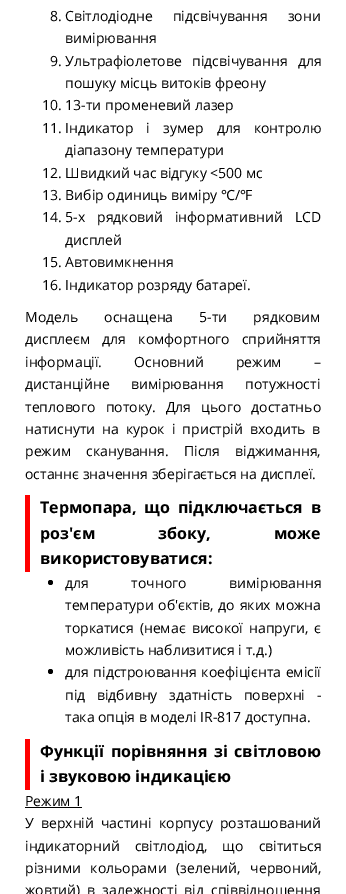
%!PS
<< /PageSize [346 894] >> setpagedevice
/rgb { 3 { 255 div 3 1 roll } repeat setrgbcolor } def
/font { [ exch dup neg 0 0 3 -1 roll 0 0 ] selectfont } def
/text { moveto show } def
/circle { newpath 0 360 arc closepath } def
0 894 translate 1 -1 scale
4 setmiterlimit
255 255 255 rgb
0 0 346 894 rectfill
255 0 0 rgb
25 495 5 77 rectfill
0 0 0 rgb
50.5 582.5 2.5 circle fill
50.5 671.5 2.5 circle fill
255 0 0 rgb
25 739 5 51 rectfill
0 0 0 rgb
25 807 57 1 rectfill
/OpenSans-Regular 14 font
(8.) 50 21 text
65 21 moveto 16 0 32 (Світлодіодне підсвічування зони) widthshow
(вимірювання) 65 43 text
(9.) 50 66 text
65 66 moveto 7 0 32 (Ультрафіолетове підсвічування для) widthshow
(пошуку місць витоків фреону) 65 88 text
(10. 13-ти променевий лазер) 42 110 text
(11.) 42 133 text
65 133 moveto 9.5 0 32 (Індикатор і зумер для контролю) widthshow
(діапазону температури) 65 155 text
(12. Швидкий час відгуку <500 мс) 42 178 text
(13. Вибір одиниць виміру) 42 200 text
/NotoSans-Regular 14 font
(℃) 221 200 text
/OpenSans-Regular 14 font
(/) 235 200 text
/NotoSans-Regular 14 font
(℉) 240 200 text
/OpenSans-Regular 14 font
(14.) 42 222 text
65 222 moveto 8.5 0 32 (5-х рядковий інформативний LCD) widthshow
(дисплей) 65 245 text
(15. Автовимкнення) 42 267 text
(16. Індикатор розряду батареї.) 42 290 text
25 322 moveto 22.5 0 32 (Модель оснащена 5-ти рядковим) widthshow
25 344 moveto 8.5 0 32 (дисплеєм для комфортного сприйняття) widthshow
25 367 moveto 28.5 0 32 (інформації. Основний режим –) widthshow
25 389 moveto 18 0 32 (дистанційне вимірювання потужності) widthshow
25 412 moveto 6.5 0 32 (теплового потоку. Для цього достатньо) widthshow
25 434 moveto 3.5 0 32 (натиснути на курок і пристрій входить в) widthshow
25 456 moveto 11.5 0 32 (режим сканування. Після віджимання,) widthshow
(останнє значення зберігається на дисплеї.) 25 479 text
/OpenSans-Bold 16 font
40 513 moveto 3.5 0 32 (Термопара, що підключається в) widthshow
40 539 moveto 59 0 32 (роз'єм збоку, може) widthshow
(використовуватися:) 40 564 text
/OpenSans-Regular 14 font
65 588 moveto 39 0 32 (для точного вимірювання) widthshow
65 610 moveto 1 0 32 (температури об'єктів, до яких можна) widthshow
65 633 moveto 2.5 0 32 (торкатися \(немає високої напруги, є) widthshow
(можливість наблизитися і т.д.\)) 65 655 text
65 677 moveto 1 0 32 (для підстроювання коефіцієнта емісії) widthshow
65 700 moveto 8 0 32 (під відбивну здатність поверхні -) widthshow
(така опція в моделі IR-817 доступна.) 65 722 text
/OpenSans-Bold 16 font
40 757 moveto 2.5 0 32 (Функції порівняння зі світловою) widthshow
(і звуковою індикацією) 40 782 text
/OpenSans-Regular 14 font
(Режим 1) 25 806 text
25 828 moveto 3.5 0 32 (У верхній частині корпусу розташований) widthshow
25 851 moveto 11.5 0 32 (індикаторний світлодіод, що світиться) widthshow
25 873 moveto 6 0 32 (різними кольорами \(зелений, червоний,) widthshow
25 895 moveto 3.5 0 32 (жовтий\) в залежності від співвідношення) widthshow
showpage
